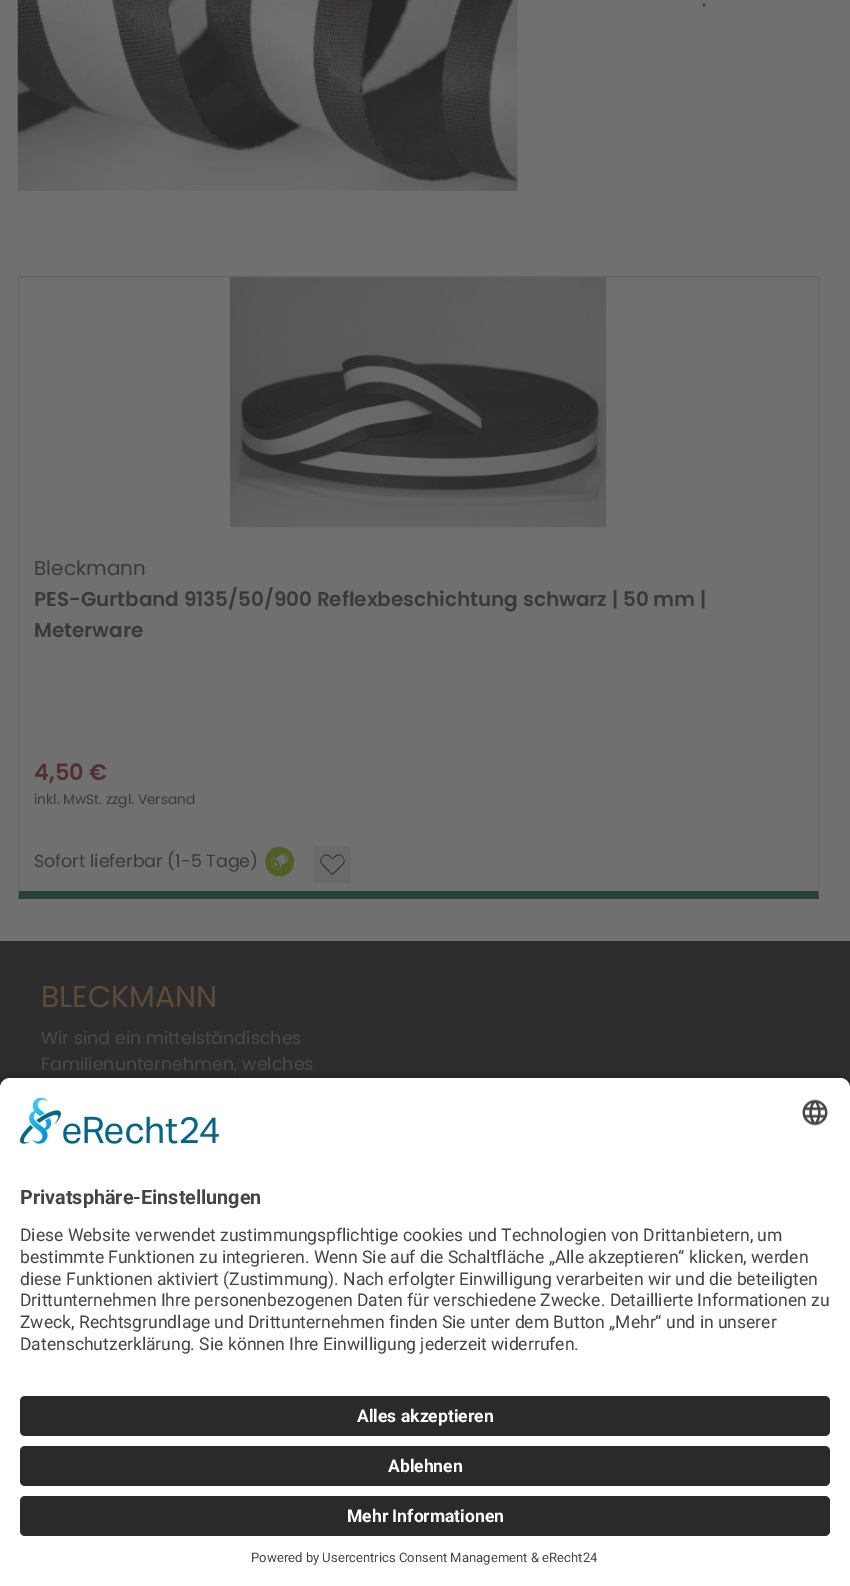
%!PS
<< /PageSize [850 1586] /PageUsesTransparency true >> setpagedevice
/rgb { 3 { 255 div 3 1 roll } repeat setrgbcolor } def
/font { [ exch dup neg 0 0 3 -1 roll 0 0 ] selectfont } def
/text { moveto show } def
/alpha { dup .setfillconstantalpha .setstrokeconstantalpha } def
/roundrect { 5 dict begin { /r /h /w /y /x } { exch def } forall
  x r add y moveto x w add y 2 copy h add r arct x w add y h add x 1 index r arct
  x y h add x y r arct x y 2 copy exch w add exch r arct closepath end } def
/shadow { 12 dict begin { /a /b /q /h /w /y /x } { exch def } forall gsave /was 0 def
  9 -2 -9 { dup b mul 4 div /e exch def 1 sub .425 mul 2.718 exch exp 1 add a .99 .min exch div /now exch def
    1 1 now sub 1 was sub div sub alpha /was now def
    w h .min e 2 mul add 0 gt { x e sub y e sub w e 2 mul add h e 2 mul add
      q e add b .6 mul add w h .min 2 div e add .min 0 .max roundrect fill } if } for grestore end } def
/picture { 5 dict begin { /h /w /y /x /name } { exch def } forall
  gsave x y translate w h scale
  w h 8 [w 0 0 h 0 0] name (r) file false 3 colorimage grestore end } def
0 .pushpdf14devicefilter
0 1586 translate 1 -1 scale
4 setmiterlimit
112 112 112 rgb
0 0 850 1586 rectfill
(img_01.rgb) 17 0 501 191 picture
97 97 97 rgb
18 276 801 1 rectfill
819 276 moveto 0 623 rlineto -1 -8 rlineto 0 -613 rlineto closepath fill
41 63 59 rgb
819 899 moveto -801 0 rlineto 1 -8 rlineto 799 0 rlineto closepath fill
97 97 97 rgb
18 899 moveto 0 -623 rlineto 1 2 rlineto 0 613 rlineto closepath fill
(img_02.rgb) 230 277 377 251 picture
(img_03.rgb) 265 846 30 31 picture
(img_04.rgb) 314 846 37 38 picture
45 45 45 rgb
0 941 850 147 rectfill
0 0 0 rgb
0 1081 850 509 10 4.5 0.8 shadow
255 255 255 rgb
10 1078 moveto 830 0 rlineto 5.5 0 10 4.5 10 10 rcurveto 0 293 rlineto -850 0 rlineto 0 -293 rlineto 0 -5.5 4.5 -10 10 -10 rcurveto closepath fill
(img_05.rgb) 20 1098 199 46 picture
(img_06.rgb) 802 1099 26 27 picture
0 1381 850 205 rectfill
41 42 43 rgb
20 1396 810 40 5 roundrect fill
20 1446 810 40 5 roundrect fill
20 1496 810 40 5 roundrect fill
/Poppins-Regular 20 font
45 45 45 rgb
(.) 702 6 text
57 57 57 rgb
(Bleckmann) 34 575 text
/Poppins-SemiBold 20 font
(PES-Gurtband 9135/50/900 Reflexbeschichtung schwarz | 50 mm |) 34 606 text
(Meterware) 34 637 text
/Poppins-SemiBold 22.5 font
81 48 48 rgb
(4,50 €) 34 780 text
/Poppins-Regular 13.75 font
57 57 57 rgb
(inkl. MwSt. zzgl. Versand) 34 804 text
/Poppins-Regular 17.5 font
(Sofort lieferbar \(1-5 Tage\)) 34 867 text
/Poppins-Regular 30 font
92 75 57 rgb
(BLECKMANN) 41 1007 text
/Poppins-Regular 17.5 font
75 73 73 rgb
(Wir sind ein mittelständisches) 41 1044 text
(Familienunternehmen, welches) 41 1070 text
/Roboto-Bold 19.75 font
68 68 68 rgb
(Privatsphäre-Einstellungen) 20 1204 text
/Roboto-Regular 17.5 font
(Diese Website verwendet zustimmungspflichtige cookies und Technologien von Drittanbietern, um) 20 1241 text
(bestimmte Funktionen zu integrieren. Wenn Sie auf die Schaltfläche „Alle akzeptieren“ klicken, werden) 20 1263 text
(diese Funktionen aktiviert \(Zustimmung\). Nach erfolgter Einwilligung verarbeiten wir und die beteiligten) 20 1285 text
(Drittunternehmen Ihre personenbezogenen Daten für verschiedene Zwecke. Detaillierte Informationen zu) 20 1306 text
(Zweck, Rechtsgrundlage und Drittunternehmen finden Sie unter dem Button „Mehr“ und in unserer) 20 1328 text
(Datenschutzerklärung. Sie können Ihre Einwilligung jederzeit widerrufen.) 20 1350 text
/Roboto-Bold 17.5 font
255 255 255 rgb
(Alles akzeptieren) 357 1422 text
(Ablehnen) 388 1472 text
(Mehr Informationen) 347 1522 text
/Roboto-Regular 13.1 font
68 68 68 rgb
(Powered by Usercentrics Consent Management & eRecht24) 251 1562 text
.poppdf14devicefilter showpage
